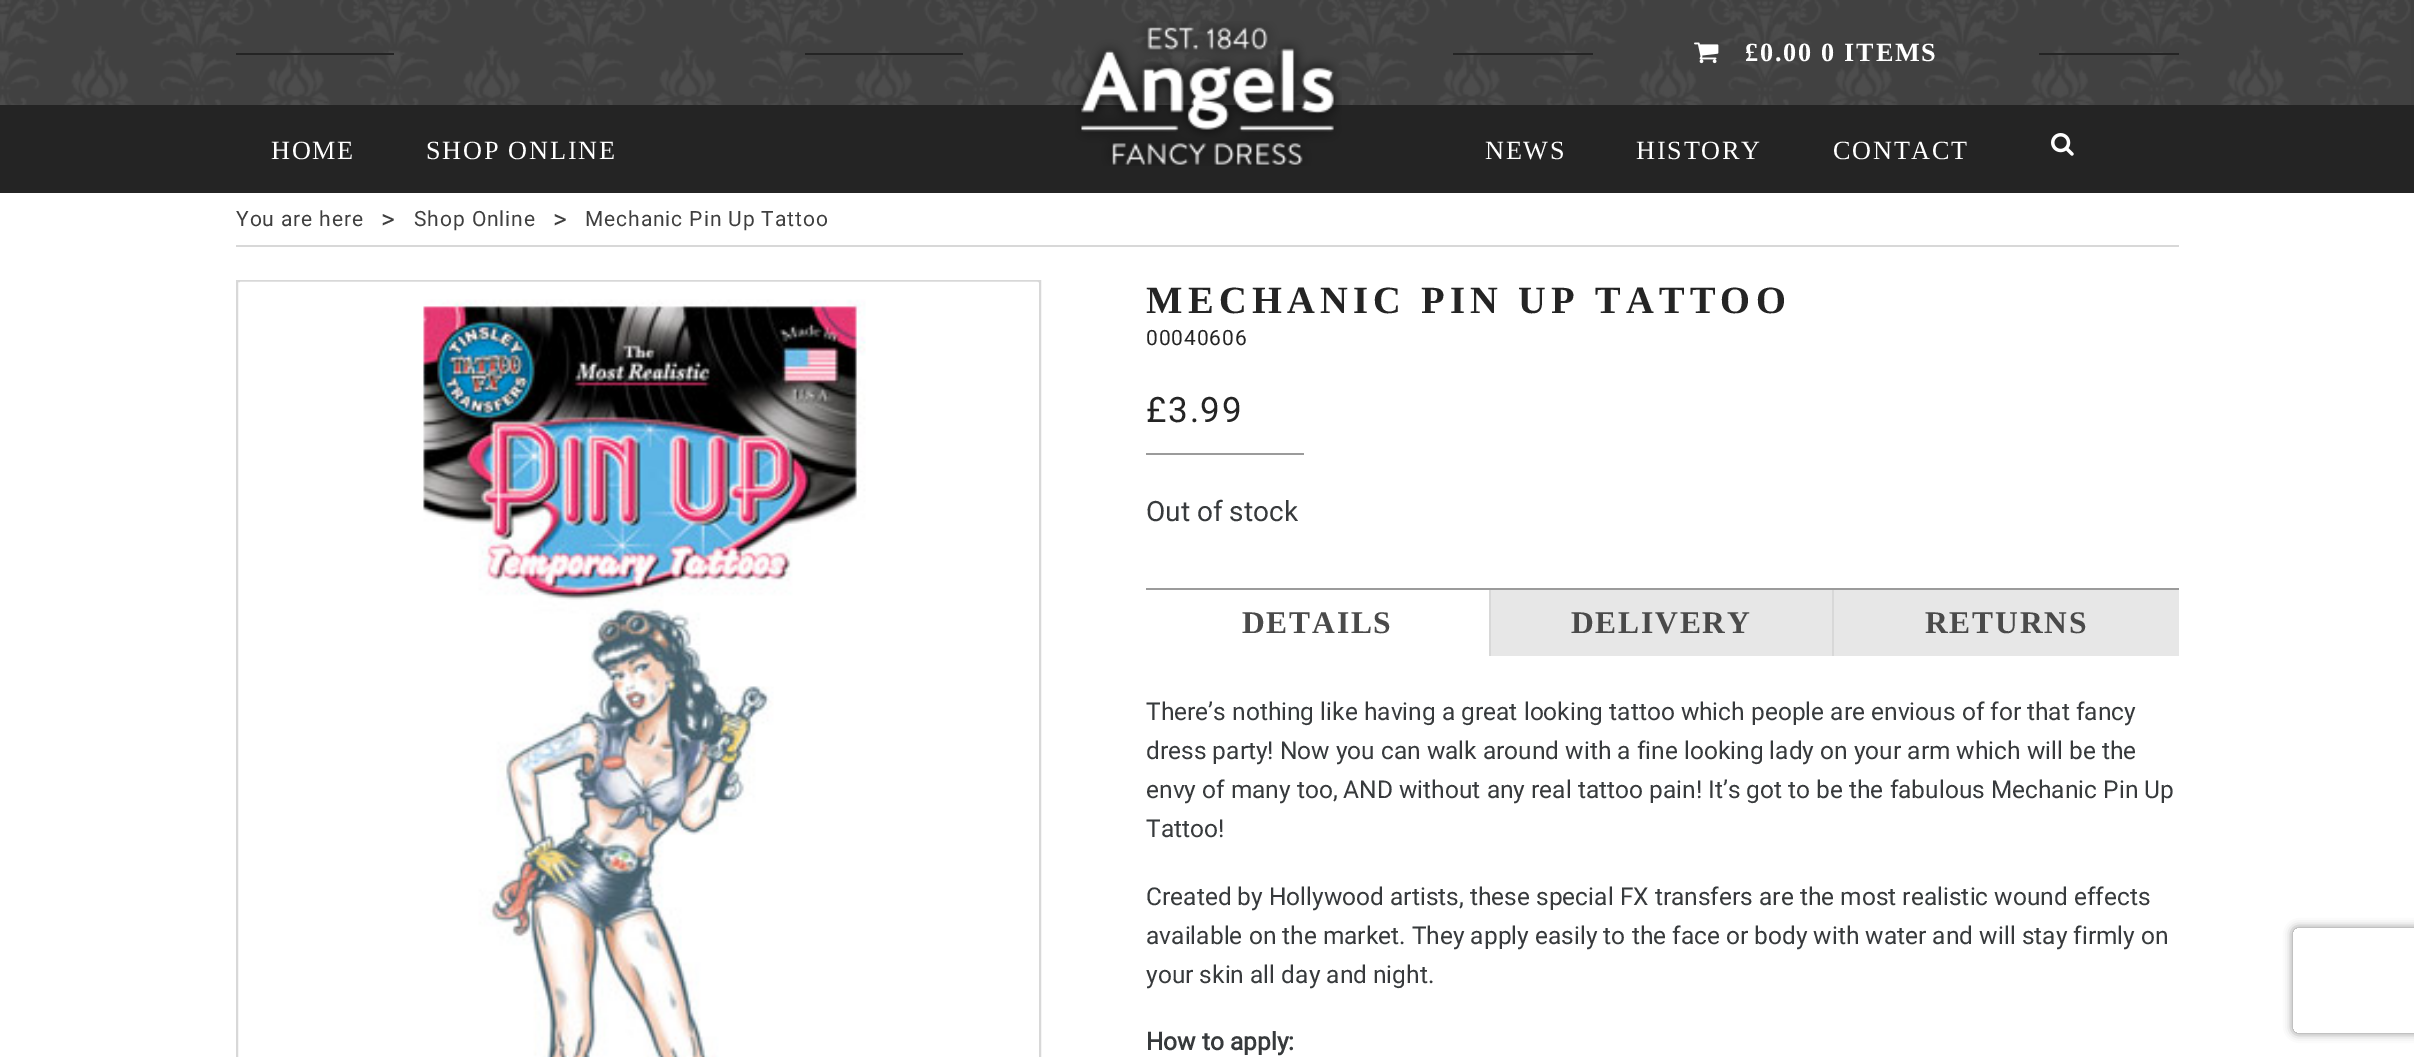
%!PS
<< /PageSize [2414 1057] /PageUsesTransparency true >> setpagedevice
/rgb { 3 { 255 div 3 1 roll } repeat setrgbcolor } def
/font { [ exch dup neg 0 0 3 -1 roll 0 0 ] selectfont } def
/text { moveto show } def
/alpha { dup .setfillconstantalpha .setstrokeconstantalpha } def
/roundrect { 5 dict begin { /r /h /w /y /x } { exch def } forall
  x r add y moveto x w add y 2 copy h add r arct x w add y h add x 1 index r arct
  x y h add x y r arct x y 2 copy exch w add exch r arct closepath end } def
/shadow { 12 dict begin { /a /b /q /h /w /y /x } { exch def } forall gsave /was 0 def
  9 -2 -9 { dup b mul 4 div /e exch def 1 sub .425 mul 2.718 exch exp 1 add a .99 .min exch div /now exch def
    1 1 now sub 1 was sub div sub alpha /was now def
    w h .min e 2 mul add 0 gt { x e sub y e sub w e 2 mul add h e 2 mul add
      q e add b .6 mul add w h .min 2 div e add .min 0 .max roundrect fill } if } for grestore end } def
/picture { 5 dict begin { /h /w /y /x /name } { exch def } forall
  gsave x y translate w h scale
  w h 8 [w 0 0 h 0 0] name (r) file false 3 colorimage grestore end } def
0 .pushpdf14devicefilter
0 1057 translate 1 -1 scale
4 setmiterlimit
36 36 36 rgb
0 0 2414 1057 rectfill
63 63 63 rgb
2411 0 3 105 rectfill
(img_01.rgb) 0 0 2411 105 picture
36 36 36 rgb
236 53 158 2 rectfill
805 53 158 2 rectfill
(img_02.rgb) 1075 21 267 145 picture
1453 53 140 2 rectfill
(img_03.rgb) 1694 42 25 22 picture
2039 53 140 2 rectfill
(img_04.rgb) 2051 133 23 23 picture
255 255 255 rgb
0 193 2414 864 rectfill
216 216 216 rgb
236 245 1943 2 rectfill
2 setlinewidth
237 281 803 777 rectstroke
(img_05.rgb) 240 281 798 776 picture
155 155 155 rgb
1146 453 158 2 rectfill
1146 588 1033 2 rectfill
216 216 216 rgb
1489 590 2 66 rectfill
231 231 231 rgb
1491 590 341 66 rectfill
216 216 216 rgb
1832 590 2 66 rectfill
231 231 231 rgb
1834 590 345 66 rectfill
gsave
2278 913 moveto 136 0 rlineto 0 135 rlineto -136 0 rlineto closepath 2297 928 moveto 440 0 rlineto 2 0 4 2 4 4 rcurveto 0 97 rlineto 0 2 -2 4 -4 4 rcurveto -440 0 rlineto -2 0 -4 -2 -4 -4 rcurveto 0 -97 rlineto 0 -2 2 -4 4 -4 rcurveto closepath eoclip newpath
128 128 128 rgb
2293 928 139 105 4 4.5 1 shadow
grestore
/LiberationSerif-Bold 26.25 font
255 255 255 rgb
1745 61 moveto 1.75 0 (£0.00 0 ITEMS) ashow
/LiberationSerif-Regular 26.25 font
271 159 moveto 1.75 0 (HOME) ashow
426 159 moveto 1.75 0 (SHOP ONLINE) ashow
1485 159 moveto 1.75 0 (NEWS) ashow
1636 159 moveto 1.75 0 (HISTORY) ashow
1833 159 moveto 1.75 0 (CONTACT) ashow
/Roboto-Regular 21 font
63 63 63 rgb
236 226 moveto 0.9 0 (You are here) ashow
/Roboto-Regular 26.25 font
381 228 moveto 0.9 0 (>) ashow
/Roboto-Regular 21 font
414 226 moveto 0.9 0 (Shop Online) ashow
/Roboto-Regular 26.25 font
553 228 moveto 0.9 0 (>) ashow
/Roboto-Regular 21 font
585 226 moveto 0.9 0 (Mechanic Pin Up Tattoo) ashow
/LiberationSerif-Bold 38.5 font
36 36 36 rgb
1146 313 moveto 5.25 0 (MECHANIC PIN UP TATTOO) ashow
/Roboto-Regular 21 font
1146 345 moveto 0.9 0 (00040606) ashow
/Roboto-Regular 35 font
1146 422 moveto 1.75 0 (£3.99) ashow
/Roboto-Regular 28 font
55 58 60 rgb
(Out of stock) 1146 521 text
/LiberationSerif-Bold 31.5 font
74 74 74 rgb
1242 633 moveto 1.75 0 (DETAILS) ashow
1571 633 moveto 1.75 0 (DELIVERY) ashow
1925 633 moveto 1.75 0 (RETURNS) ashow
/Roboto-Regular 24.5 font
55 58 60 rgb
(There’s nothing like having a great looking tattoo which people are envious of for that fancy) 1146 720 text
(dress party! Now you can walk around with a fine looking lady on your arm which will be the) 1146 759 text
(envy of many too, AND without any real tattoo pain! It’s got to be the fabulous Mechanic Pin Up) 1146 798 text
(Tattoo!) 1146 837 text
(Created by Hollywood artists, these special FX transfers are the most realistic wound effects) 1146 905 text
(available on the market. They apply easily to the face or body with water and will stay firmly on) 1146 944 text
(your skin all day and night.) 1146 983 text
/Roboto-Bold 24.5 font
(How to apply:) 1146 1050 text
.poppdf14devicefilter showpage
